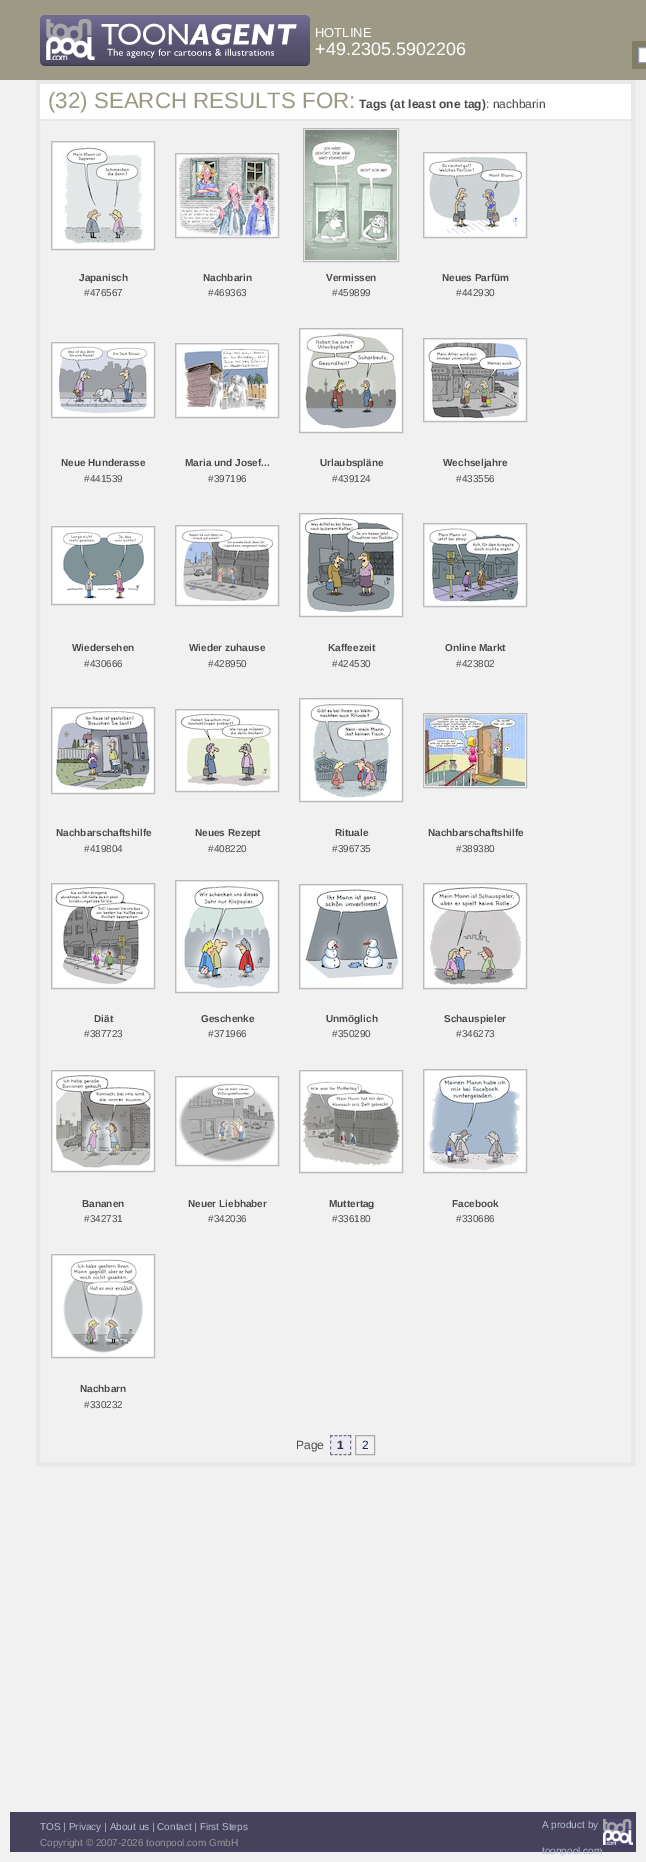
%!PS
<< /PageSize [646 1862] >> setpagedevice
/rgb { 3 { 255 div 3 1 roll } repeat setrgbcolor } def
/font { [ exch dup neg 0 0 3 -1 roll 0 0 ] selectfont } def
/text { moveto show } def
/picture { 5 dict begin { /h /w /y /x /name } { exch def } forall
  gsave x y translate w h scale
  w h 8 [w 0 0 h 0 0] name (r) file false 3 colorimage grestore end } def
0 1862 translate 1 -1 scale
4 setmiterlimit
241 241 241 rgb
0 0 646 1862 rectfill
156 153 132 rgb
0 0 646 80 rectfill
(img_01.rgb) 40 15 270 51 picture
130 126 99 rgb
632 41 14 28 rectfill
255 255 255 rgb
638.5 47.5 moveto 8 0 rlineto 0 15 rlineto -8 0 rlineto closepath gsave fill grestore
153 156 187 rgb
stroke
232 232 232 rgb
4 setlinewidth
38 82 595 1382 rectstroke
255 255 255 rgb
40 84 591 35 rectfill
232 232 232 rgb
40 119 591 2 rectfill
187 187 187 rgb
1 setlinewidth
51.5 141.5 103 108 rectstroke
(img_02.rgb) 53 143 100 105 picture
175.5 153.5 103 84 rectstroke
(img_03.rgb) 177 155 100 81 picture
303.5 128.5 95 133 rectstroke
(img_04.rgb) 305 130 92 130 picture
423.5 152.5 103 85 rectstroke
(img_05.rgb) 425 154 100 82 picture
51.5 342.5 103 75 rectstroke
(img_06.rgb) 53 344 100 72 picture
175.5 343.5 103 74 rectstroke
(img_07.rgb) 177 345 100 71 picture
299.5 328.5 103 104 rectstroke
(img_08.rgb) 301 330 100 101 picture
423.5 338.5 103 83 rectstroke
(img_09.rgb) 425 340 100 80 picture
51.5 526.5 103 78 rectstroke
(img_10.rgb) 53 528 100 75 picture
175.5 525.5 103 80 rectstroke
(img_11.rgb) 177 527 100 77 picture
299.5 513.5 103 103 rectstroke
(img_12.rgb) 301 515 100 100 picture
423.5 523.5 103 83 rectstroke
(img_13.rgb) 425 525 100 80 picture
51.5 707.5 103 86 rectstroke
(img_14.rgb) 53 709 100 83 picture
175.5 709.5 103 82 rectstroke
(img_15.rgb) 177 711 100 79 picture
299.5 698.5 103 103 rectstroke
(img_16.rgb) 301 700 100 100 picture
423.5 713.5 103 74 rectstroke
(img_17.rgb) 425 715 100 71 picture
51.5 883.5 103 105 rectstroke
(img_18.rgb) 53 885 100 102 picture
175.5 880.5 103 112 rectstroke
(img_19.rgb) 177 882 100 109 picture
299.5 884.5 103 104 rectstroke
(img_20.rgb) 301 886 100 101 picture
423.5 883.5 103 105 rectstroke
(img_21.rgb) 425 885 100 102 picture
51.5 1070.5 103 101 rectstroke
(img_22.rgb) 53 1072 100 98 picture
175.5 1076.5 103 89 rectstroke
(img_23.rgb) 177 1078 100 86 picture
299.5 1070.5 103 102 rectstroke
(img_24.rgb) 301 1072 100 99 picture
423.5 1069.5 103 103 rectstroke
(img_25.rgb) 425 1071 100 100 picture
51.5 1254.5 103 103 rectstroke
(img_26.rgb) 53 1256 100 100 picture
233 234 245 rgb
330 1435 21 20 rectfill
119 119 119 rgb
[3 1.5] 0 setdash
330 1435.5 moveto 21 0 rlineto stroke
[3 2.67] 0 setdash
350.5 1435 moveto 0 20 rlineto stroke
[3 1.5] 0 setdash
330 1454.5 moveto 21 0 rlineto stroke
[3 2.67] 0 setdash
330.5 1435 moveto 0 20 rlineto stroke
170 170 170 rgb
[] 0 setdash
355.5 1435.5 19 19 rectstroke
70 65 92 rgb
10 1812 626 40 rectfill
(img_27.rgb) 603 1819 30 26 picture
/LiberationSans-Regular 13 font
255 255 255 rgb
(HOTLINE) 315 37 text
/LiberationSans-Regular 18 font
(+49.2305.5902206) 315 55 text
/LiberationSans-Regular 22.3 font
156 153 132 rgb
(\(32\) SEARCH RESULTS FOR:) 48 108 text
/LiberationSans-Bold 12 font
73 73 73 rgb
(Tags \(at least one tag\)) 359 108 text
/LiberationSans-Regular 12 font
(: nachbarin) 486 108 text
/LiberationSans-Bold 10 font
(Japanisch) 79 281 text
/LiberationSans-Regular 10 font
(#476567) 84 296 text
/LiberationSans-Bold 10 font
(Nachbarin) 203 281 text
/LiberationSans-Regular 10 font
(#469363) 208 296 text
/LiberationSans-Bold 10 font
(Vermissen) 326 281 text
/LiberationSans-Regular 10 font
(#459899) 332 296 text
/LiberationSans-Bold 10 font
(Neues Parfüm) 442 281 text
/LiberationSans-Regular 10 font
(#442930) 456 296 text
/LiberationSans-Bold 10 font
(Neue Hunderasse) 61 466 text
/LiberationSans-Regular 10 font
(#441539) 84 482 text
/LiberationSans-Bold 10 font
(Maria und Josef...) 185 466 text
/LiberationSans-Regular 10 font
(#397196) 208 482 text
/LiberationSans-Bold 10 font
(Urlaubspläne) 320 466 text
/LiberationSans-Regular 10 font
(#439124) 332 482 text
/LiberationSans-Bold 10 font
(Wechseljahre) 443 466 text
/LiberationSans-Regular 10 font
(#433556) 456 482 text
/LiberationSans-Bold 10 font
(Wiedersehen) 72 651 text
/LiberationSans-Regular 10 font
(#430666) 84 667 text
/LiberationSans-Bold 10 font
(Wieder zuhause) 189 651 text
/LiberationSans-Regular 10 font
(#428950) 208 667 text
/LiberationSans-Bold 10 font
(Kaffeezeit) 328 651 text
/LiberationSans-Regular 10 font
(#424530) 332 667 text
/LiberationSans-Bold 10 font
(Online Markt) 445 651 text
/LiberationSans-Regular 10 font
(#423802) 456 667 text
/LiberationSans-Bold 10 font
(Nachbarschaftshilfe) 56 836 text
/LiberationSans-Regular 10 font
(#419804) 84 852 text
/LiberationSans-Bold 10 font
(Neues Rezept) 195 836 text
/LiberationSans-Regular 10 font
(#408220) 208 852 text
/LiberationSans-Bold 10 font
(Rituale) 335 836 text
/LiberationSans-Regular 10 font
(#396735) 332 852 text
/LiberationSans-Bold 10 font
(Nachbarschaftshilfe) 428 836 text
/LiberationSans-Regular 10 font
(#389380) 456 852 text
/LiberationSans-Bold 10 font
(Diät) 94 1022 text
/LiberationSans-Regular 10 font
(#387723) 84 1037 text
/LiberationSans-Bold 10 font
(Geschenke) 201 1022 text
/LiberationSans-Regular 10 font
(#371966) 208 1037 text
/LiberationSans-Bold 10 font
(Unmöglich) 326 1022 text
/LiberationSans-Regular 10 font
(#350290) 332 1037 text
/LiberationSans-Bold 10 font
(Schauspieler) 444 1022 text
/LiberationSans-Regular 10 font
(#346273) 456 1037 text
/LiberationSans-Bold 10 font
(Bananen) 82 1207 text
/LiberationSans-Regular 10 font
(#342731) 84 1222 text
/LiberationSans-Bold 10 font
(Neuer Liebhaber) 188 1207 text
/LiberationSans-Regular 10 font
(#342036) 208 1222 text
/LiberationSans-Bold 10 font
(Muttertag) 329 1207 text
/LiberationSans-Regular 10 font
(#336180) 332 1222 text
/LiberationSans-Bold 10 font
(Facebook) 452 1207 text
/LiberationSans-Regular 10 font
(#330686) 456 1222 text
/LiberationSans-Bold 10 font
(Nachbarn) 80 1392 text
/LiberationSans-Regular 10 font
(#330232) 84 1408 text
/LiberationSans-Regular 12 font
(Page) 296 1449 text
/LiberationSans-Bold 12 font
51 51 51 rgb
(1) 337 1449 text
/LiberationSans-Regular 12 font
29 36 108 rgb
(2) 362 1449 text
/LiberationSans-Regular 10 font
182 194 216 rgb
(TOS | Privacy | About us | Contact | First Steps) 40 1830 text
153 153 153 rgb
(Copyright © 2007-2026 toonpool.com GmbH) 40 1846 text
182 194 216 rgb
(A product by) 542 1828 text
(toonpool.com) 542 1854 text
showpage
